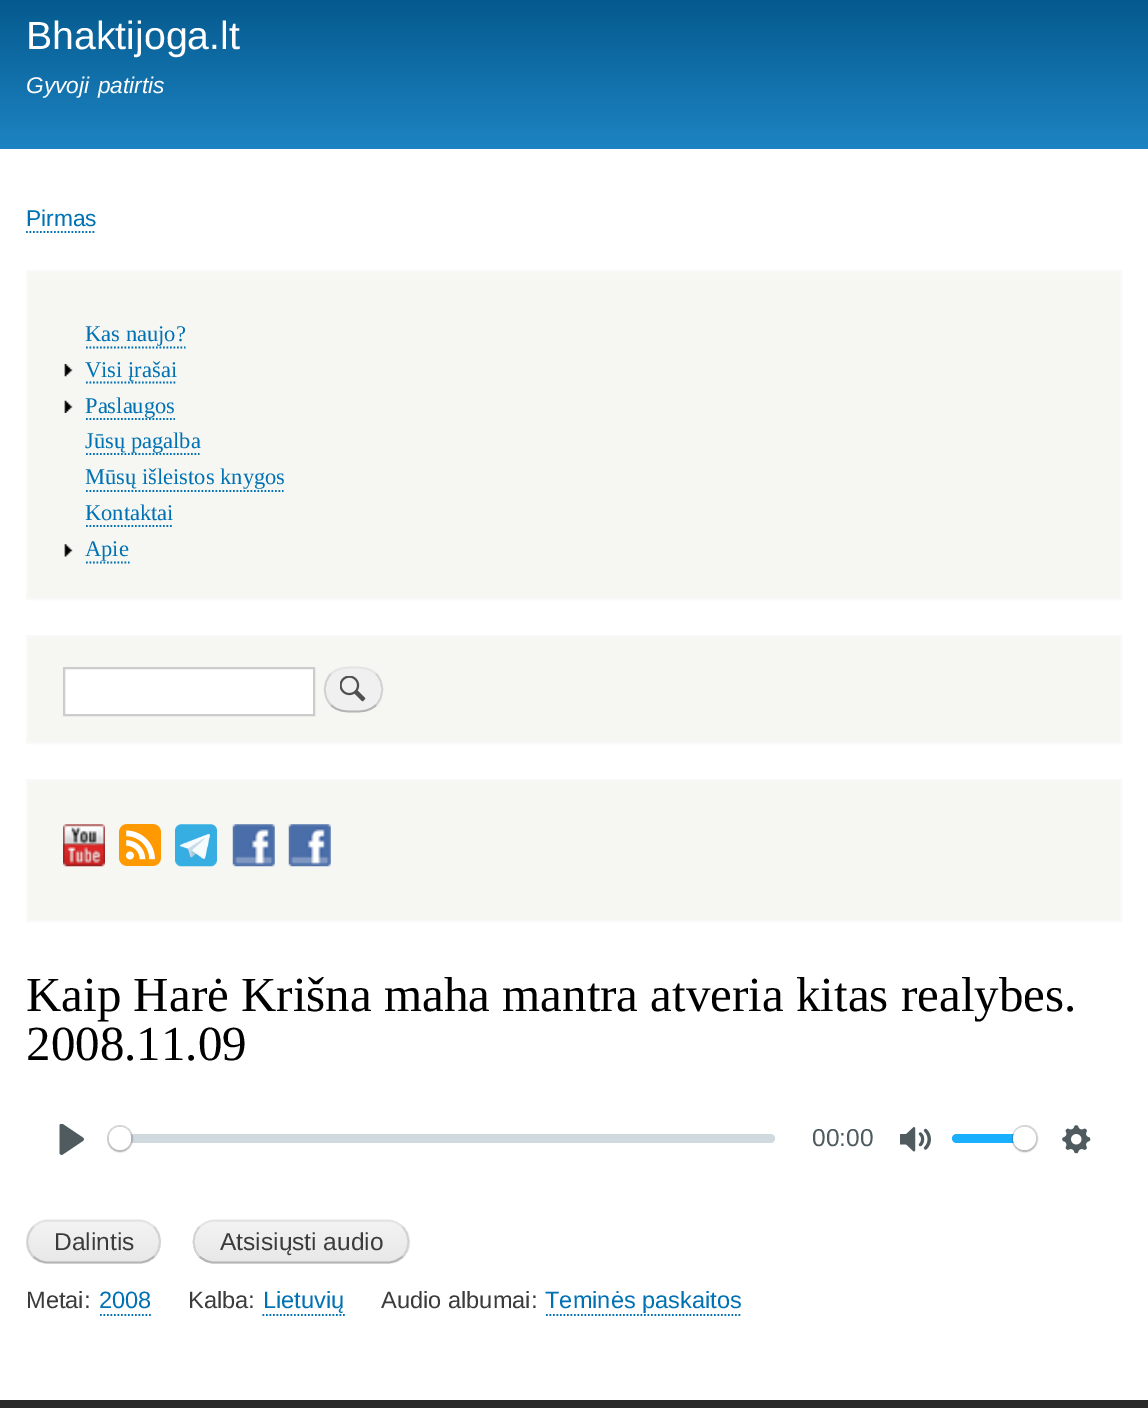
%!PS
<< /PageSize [1148 1408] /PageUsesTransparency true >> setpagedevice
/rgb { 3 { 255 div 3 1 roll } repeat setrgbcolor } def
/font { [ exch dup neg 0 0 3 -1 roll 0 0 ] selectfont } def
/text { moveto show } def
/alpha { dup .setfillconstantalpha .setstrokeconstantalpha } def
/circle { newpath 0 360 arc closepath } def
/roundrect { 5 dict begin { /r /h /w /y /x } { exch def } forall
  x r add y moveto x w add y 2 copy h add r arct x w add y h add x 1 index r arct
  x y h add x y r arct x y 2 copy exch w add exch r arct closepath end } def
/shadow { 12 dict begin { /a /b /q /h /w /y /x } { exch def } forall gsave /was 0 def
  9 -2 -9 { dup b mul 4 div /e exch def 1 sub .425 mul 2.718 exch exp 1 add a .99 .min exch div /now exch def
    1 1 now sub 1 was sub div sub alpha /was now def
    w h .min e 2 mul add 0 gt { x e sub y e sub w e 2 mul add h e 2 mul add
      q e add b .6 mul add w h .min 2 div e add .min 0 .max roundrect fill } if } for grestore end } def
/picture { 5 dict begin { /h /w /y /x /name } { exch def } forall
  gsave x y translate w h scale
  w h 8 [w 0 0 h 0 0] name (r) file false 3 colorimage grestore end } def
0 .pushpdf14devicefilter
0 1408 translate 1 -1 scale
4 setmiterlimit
255 255 255 rgb
0 0 1148 1408 rectfill
gsave 0 0 moveto 1148 0 rlineto 0 149 rlineto -1148 0 rlineto closepath clip newpath
<< /ShadingType 2 /ColorSpace /DeviceRGB /Coords [574 0 574 149] /Extend [true true] /Function << /FunctionType 2 /Domain [0 1] /C0 [0.02 0.353 0.557] /C1 [0.114 0.518 0.765] /N 1 >> >> shfill grestore
0 113 179 rgb
1.8 setlinewidth
[1.75 1.75] 0 setdash
26 232 moveto 70 0 rlineto stroke
246 246 242 rgb
27 271 moveto 1094 0 rlineto 0 328 rlineto -1094 0 rlineto closepath gsave fill grestore
249 249 249 rgb
2 setlinewidth
[] 0 setdash
stroke
0 113 179 rgb
1.8 setlinewidth
[1.75 1.75] 0 setdash
86 347.5 moveto 99.5 0 rlineto stroke
(img_01.rgb) 64 364 9 13 picture
86 382.5 moveto 91 0 rlineto stroke
(img_02.rgb) 64 400 9 13 picture
86 419 moveto 89 0 rlineto stroke
86 454 moveto 113.5 0 rlineto stroke
86 491 moveto 197.5 0 rlineto stroke
86 526 moveto 87 0 rlineto stroke
(img_03.rgb) 64 544 9 13 picture
86 562.5 moveto 43.5 0 rlineto stroke
246 246 242 rgb
27 636 moveto 1094 0 rlineto 0 107 rlineto -1094 0 rlineto closepath gsave fill grestore
249 249 249 rgb
2 setlinewidth
[] 0 setdash
stroke
255 255 255 rgb
64 668 moveto 250 0 rlineto 0 47 rlineto -250 0 rlineto closepath gsave fill grestore
204 204 204 rgb
stroke
240 240 240 rgb
324 667 59 45 22.5 roundrect fill
(img_04.rgb) 340 676 26 26 picture
228 228 228 rgb
1.8 setlinewidth
331 674 moveto 6.5 -6.5 14 -6.5 22.5 -6.5 rcurveto 8.5 0 16 0 22.5 6.5 rcurveto stroke
210 210 210 rgb
376 674 moveto 8.5 8.5 8.5 22.5 0 31 rcurveto stroke
180 180 180 rgb
376 705 moveto -6.5 6.5 -14 6.5 -22.5 6.5 rcurveto -8.5 0 -16 0 -22.5 -6.5 rcurveto stroke
210 210 210 rgb
331 705 moveto -8.5 -8.5 -8.5 -22.5 0 -31 rcurveto stroke
246 246 242 rgb
27 780 moveto 1094 0 rlineto 0 141 rlineto -1094 0 rlineto closepath gsave fill grestore
249 249 249 rgb
2 setlinewidth
stroke
(img_05.rgb) 63 824 42 43 picture
(img_06.rgb) 119 824 42 42 picture
(img_07.rgb) 175 824 42 43 picture
(img_08.rgb) 232 824 43 43 picture
(img_08.rgb) 288 824 43 43 picture
(img_09.rgb) 59 1124 25 31 picture
0.66 alpha
183 197 205 rgb
109 1134 666 9 4.5 roundrect fill
0.2 alpha
47 52 61 rgb
108 1126 24 25 12 roundrect stroke
1 alpha
0 0 0 rgb
109 1129 22 23 11 1 0.15 shadow
255 255 255 rgb
109 1127 22 23 11 roundrect fill
(img_10.rgb) 900 1127 31 25 picture
26 175 255 rgb
952 1134 84 9 4.5 roundrect fill
0.2 alpha
47 52 61 rgb
1013 1126 24 25 12 roundrect stroke
1 alpha
0 0 0 rgb
1013 1129 23 23 11.5 1 0.15 shadow
255 255 255 rgb
1024.5 1138.5 11.5 circle fill
(img_11.rgb) 1062 1125 29 29 picture
gsave
26 1220 135 44 22 roundrect clip newpath
gsave 39 1220 moveto 109 0 rlineto 0 2 rlineto -109 0 rlineto closepath clip newpath
<< /ShadingType 2 /ColorSpace /DeviceRGB /Coords [94 1181 94 1222] /Extend [true true] /Function << /FunctionType 2 /Domain [0 1] /C0 [0.953 0.953 0.953] /C1 [0.91 0.91 0.91] /N 1 >> >> shfill grestore
gsave 26 1222 moveto 135 0 rlineto 0 40 rlineto -135 0 rlineto closepath clip newpath
<< /ShadingType 2 /ColorSpace /DeviceRGB /Coords [94 1222 94 1262] /Extend [true true] /Function << /FunctionType 2 /Domain [0 1] /C0 [0.953 0.953 0.953] /C1 [0.91 0.91 0.91] /N 1 >> >> shfill grestore
gsave 39 1262 moveto 109 0 rlineto 0 2 rlineto -109 0 rlineto closepath clip newpath
<< /ShadingType 2 /ColorSpace /DeviceRGB /Coords [94 1262 94 1302] /Extend [true true] /Function << /FunctionType 2 /Domain [0 1] /C0 [0.953 0.953 0.953] /C1 [0.91 0.91 0.91] /N 1 >> >> shfill grestore
grestore
228 228 228 rgb
1.8 setlinewidth
33.5 1227 moveto 3.5 -4 9 -6.5 14.5 -6.5 rcurveto 91 0 rlineto 5.5 0 11 2.5 15 6.5 rcurveto stroke
210 210 210 rgb
154 1227 moveto 8 8 8 21.5 0 29.5 rcurveto stroke
180 180 180 rgb
154 1256.5 moveto -4 4 -9.5 6 -15 6 rcurveto -91 0 rlineto -5.5 0 -11 -2 -14.5 -6 rcurveto stroke
210 210 210 rgb
33.5 1256.5 moveto -8.5 -8 -8.5 -21.5 0 -29.5 rcurveto stroke
gsave
193 1220 217 44 22 roundrect clip newpath
gsave 206 1220 moveto 191 0 rlineto 0 2 rlineto -191 0 rlineto closepath clip newpath
<< /ShadingType 2 /ColorSpace /DeviceRGB /Coords [301 1181 301 1222] /Extend [true true] /Function << /FunctionType 2 /Domain [0 1] /C0 [0.953 0.953 0.953] /C1 [0.91 0.91 0.91] /N 1 >> >> shfill grestore
gsave 193 1222 moveto 217 0 rlineto 0 40 rlineto -217 0 rlineto closepath clip newpath
<< /ShadingType 2 /ColorSpace /DeviceRGB /Coords [301 1222 301 1262] /Extend [true true] /Function << /FunctionType 2 /Domain [0 1] /C0 [0.953 0.953 0.953] /C1 [0.91 0.91 0.91] /N 1 >> >> shfill grestore
gsave 206 1262 moveto 191 0 rlineto 0 2 rlineto -191 0 rlineto closepath clip newpath
<< /ShadingType 2 /ColorSpace /DeviceRGB /Coords [301 1262 301 1302] /Extend [true true] /Function << /FunctionType 2 /Domain [0 1] /C0 [0.953 0.953 0.953] /C1 [0.91 0.91 0.91] /N 1 >> >> shfill grestore
grestore
228 228 228 rgb
199.5 1227 moveto 4 -4 9.5 -6.5 15 -6.5 rcurveto 173 0 rlineto 5.5 0 11 2.5 15 6.5 rcurveto stroke
210 210 210 rgb
402.5 1227 moveto 8 8 8 21.5 0 29.5 rcurveto stroke
180 180 180 rgb
402.5 1256.5 moveto -4 4 -9.5 6 -15 6 rcurveto -173 0 rlineto -5.5 0 -11 -2 -15 -6 rcurveto stroke
210 210 210 rgb
199.5 1256.5 moveto -8 -8 -8 -21.5 0 -29.5 rcurveto stroke
0 113 179 rgb
[1.75 1.75] 0 setdash
100 1315 moveto 52 0 rlineto stroke
262.5 1315 moveto 82.5 0 rlineto stroke
546 1315 moveto 196 0 rlineto stroke
41 41 41 rgb
0 1400 1148 8 rectfill
/LiberationSans-Regular 39.25 font
255 254 255 rgb
(Bhaktijoga.lt) 26 49 text
/LiberationSans-Italic 22.75 font
26 93 moveto 2 0 32 (Gyvoji patirtis) widthshow
/LiberationSans-Regular 22.75 font
0 113 179 rgb
(Pirmas) 26 226 text
/LiberationSerif-Regular 22.5 font
(Kas naujo?) 85 341 text
(Visi įrašai) 85 377 text
(Paslaugos) 85 413 text
(Jūsų pagalba) 85 448 text
(Mūsų išleistos knygos) 85 484 text
(Kontaktai) 85 520 text
(Apie) 85 556 text
/LiberationSerif-Regular 49 font
0 0 0 rgb
(Kaip Harė Krišna maha mantra atveria kitas realybes.) 26 1011 text
(2008.11.09) 26 1060 text
/LiberationSans-Regular 24.5 font
79 91 95 rgb
(00:00) 812 1146 text
59 59 59 rgb
(Dalintis) 54 1250 text
(Atsisiųsti audio) 220 1250 text
/LiberationSans-Regular 23.6 font
(Metai:) 26 1308 text
0 113 179 rgb
(2008) 99 1308 text
59 59 59 rgb
(Kalba:) 188 1308 text
0 113 179 rgb
(Lietuvių) 263 1308 text
59 59 59 rgb
(Audio albumai:) 381 1308 text
0 113 179 rgb
(Teminės paskaitos) 545 1308 text
.poppdf14devicefilter showpage
